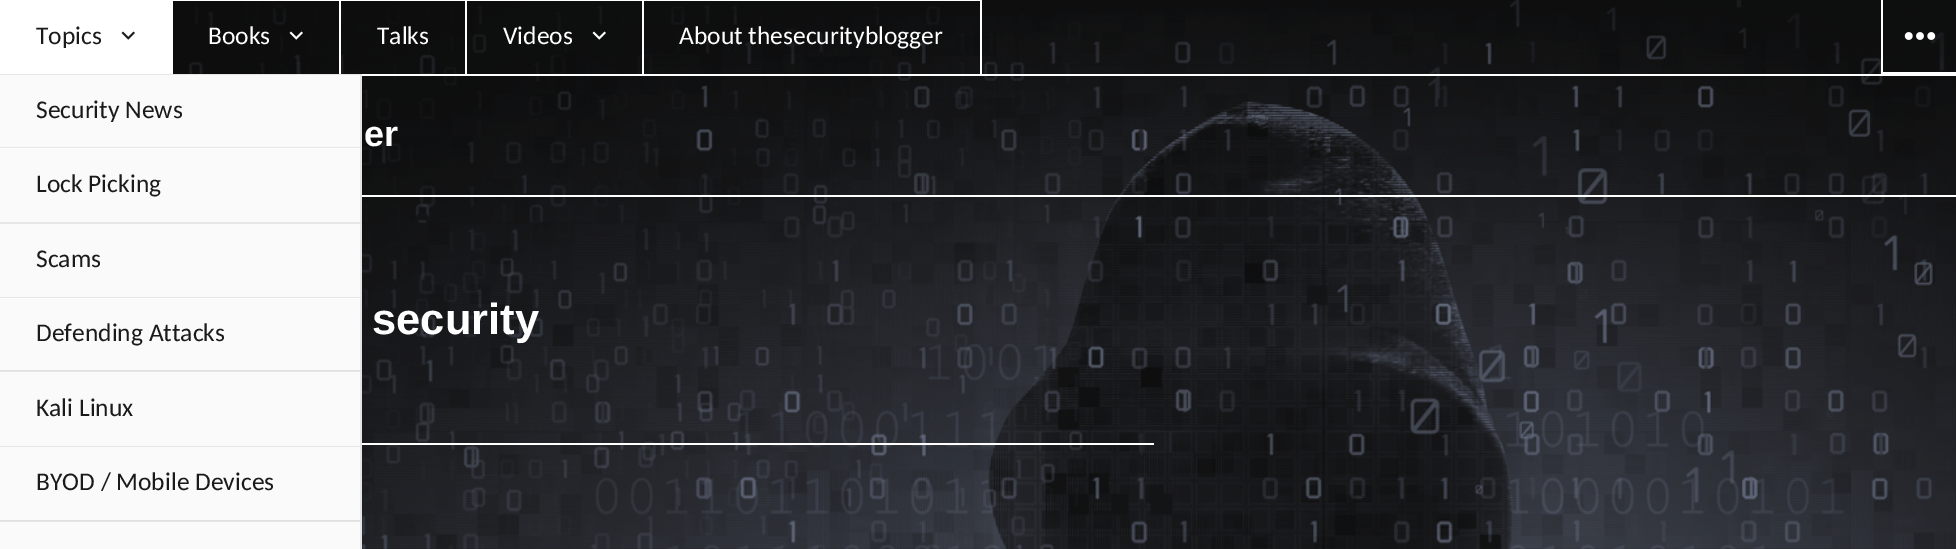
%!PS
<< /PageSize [1956 549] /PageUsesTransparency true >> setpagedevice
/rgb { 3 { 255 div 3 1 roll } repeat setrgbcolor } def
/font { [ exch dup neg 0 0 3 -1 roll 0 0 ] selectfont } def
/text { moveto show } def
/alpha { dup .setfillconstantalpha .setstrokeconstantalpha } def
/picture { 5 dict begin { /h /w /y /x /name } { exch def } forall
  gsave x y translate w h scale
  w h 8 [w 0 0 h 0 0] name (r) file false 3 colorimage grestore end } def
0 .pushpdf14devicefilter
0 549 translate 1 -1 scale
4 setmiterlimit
255 255 255 rgb
0 0 1956 549 rectfill
(img_01.rgb) 173 0 1783 549 picture
362 195 1594 2 rectfill
(img_02.rgb) 121 31 14 9 picture
360 74 2 73 rectfill
173 0 808 1 rectfill
339 0 2 75 rectfill
230 230 230 rgb
-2 74 moveto 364 0 rlineto -2 1 rlineto -360 0 rlineto closepath fill
0.1 alpha
0 0 0 rgb
362 74 moveto 0 73 rlineto -2 0 rlineto 0 -72 rlineto closepath fill
1 alpha
250 250 250 rgb
0 75 360 72 rectfill
255 255 255 rgb
173 147 189 75 rectfill
230 230 230 rgb
-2 147 moveto 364 0 rlineto -2 1 rlineto -360 0 rlineto closepath fill
0.1 alpha
0 0 0 rgb
362 147 moveto 0 75 rlineto -2 0 rlineto 0 -74 rlineto closepath fill
1 alpha
250 250 250 rgb
0 149 360 73 rectfill
255 255 255 rgb
360 222 2 75 rectfill
230 230 230 rgb
-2 222 moveto 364 0 rlineto -2 2 rlineto -360 0 rlineto closepath fill
0.1 alpha
0 0 0 rgb
362 222 moveto 0 75 rlineto -2 0 rlineto 0 -73 rlineto closepath fill
1 alpha
250 250 250 rgb
0 224 360 73 rectfill
255 255 255 rgb
173 297 189 149 rectfill
230 230 230 rgb
-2 297 moveto 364 0 rlineto -2 1 rlineto -360 0 rlineto closepath fill
0.1 alpha
0 0 0 rgb
362 297 moveto 0 73 rlineto -2 0 rlineto 0 -72 rlineto closepath fill
1 alpha
250 250 250 rgb
0 299 360 72 rectfill
0.1 alpha
0 0 0 rgb
-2 370 moveto 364 0 rlineto -2 2 rlineto -360 0 rlineto closepath fill
362 370 moveto 0 76 rlineto -2 0 rlineto 0 -74 rlineto closepath fill
1 alpha
250 250 250 rgb
0 372 360 74 rectfill
255 255 255 rgb
360 446 2 75 rectfill
230 230 230 rgb
-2 446 moveto 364 0 rlineto -2 1 rlineto -360 0 rlineto closepath fill
0.1 alpha
0 0 0 rgb
362 446 moveto 0 74 rlineto -2 0 rlineto 0 -73 rlineto closepath fill
1 alpha
250 250 250 rgb
0 447 360 74 rectfill
255 255 255 rgb
173 521 189 28 rectfill
0.1 alpha
0 0 0 rgb
-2 520 moveto 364 0 rlineto -2 2 rlineto -360 0 rlineto closepath fill
362 520 moveto 0 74 rlineto -2 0 rlineto 0 -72 rlineto closepath fill
1 alpha
250 250 250 rgb
0 522 360 27 rectfill
(img_03.rgb) 289 31 14 9 picture
255 255 255 rgb
362 74 1594 2 rectfill
465 0 2 75 rectfill
642 0 2 75 rectfill
(img_04.rgb) 592 31 14 9 picture
980 0 2 75 rectfill
1881 72 75 2 rectfill
1881 0 2 74 rectfill
(img_05.rgb) 1904 32 32 8 picture
362 443 792 2 rectfill
/Carlito-Regular 25.5 font
26 26 26 rgb
(Topics) 36 44 text
(Security News) 36 118 text
(Lock Picking) 36 192 text
(Scams) 36 267 text
(Defending Attacks) 36 341 text
(Kali Linux) 36 416 text
(BYOD / Mobile Devices) 36 490 text
255 255 255 rgb
(Books) 208 44 text
(Talks) 377 44 text
(Videos) 503 44 text
(About thesecurityblogger) 679 44 text
/LiberationSans-Bold 36 font
(er) 364 146 text
/LiberationSans-Bold 43.5 font
(security) 372 334 text
.poppdf14devicefilter showpage
